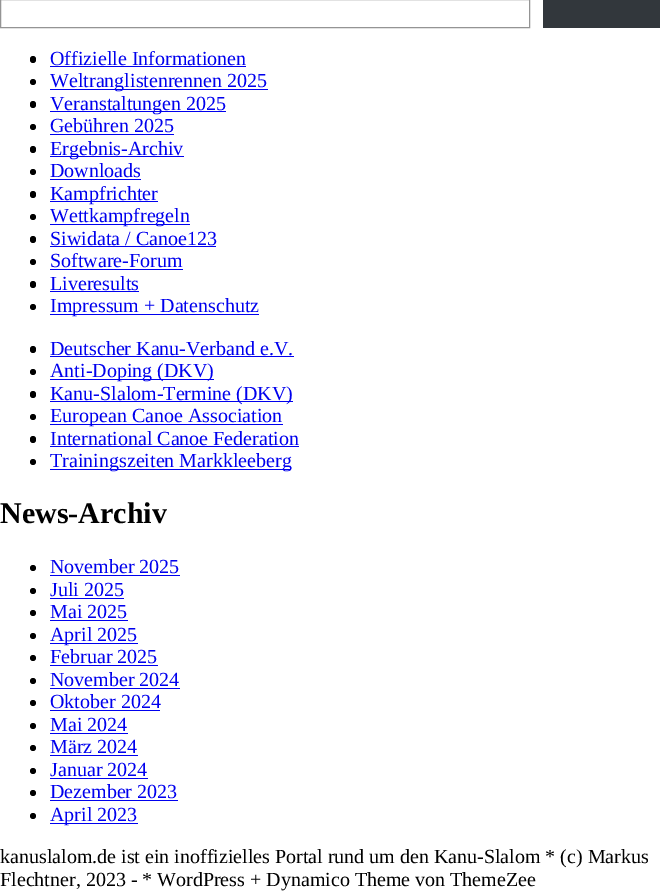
%!PS
<< /PageSize [660 891] >> setpagedevice
/rgb { 3 { 255 div 3 1 roll } repeat setrgbcolor } def
/font { [ exch dup neg 0 0 3 -1 roll 0 0 ] selectfont } def
/text { moveto show } def
/circle { newpath 0 360 arc closepath } def
/roundrect { 5 dict begin { /r /h /w /y /x } { exch def } forall
  x r add y moveto x w add y 2 copy h add r arct x w add y h add x 1 index r arct
  x y h add x y r arct x y 2 copy exch w add exch r arct closepath end } def
0 891 translate 1 -1 scale
4 setmiterlimit
255 255 255 rgb
0 0 660 891 rectfill
148 148 148 rgb
0.5 -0.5 529 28 rectstroke
50 55 60 rgb
543 0 117 28 rectfill
0 0 0 rgb
30 56 6 7 3 roundrect fill
0 0 238 rgb
50 66 196 1 rectfill
0 0 0 rgb
33 82 3 circle fill
0 0 238 rgb
50 89 218 1 rectfill
0 0 0 rgb
30 101 6 7 3 roundrect fill
0 0 238 rgb
50 111 176 1 rectfill
0 0 0 rgb
33 127 3 circle fill
0 0 238 rgb
50 134 124 1 rectfill
0 0 0 rgb
30 146 6 7 3 roundrect fill
0 0 238 rgb
50 156 134 1 rectfill
0 0 0 rgb
33 172 3 circle fill
0 0 238 rgb
50 179 91 1 rectfill
0 0 0 rgb
30 191 6 7 3 roundrect fill
0 0 238 rgb
50 201 108 1 rectfill
0 0 0 rgb
33 217 3 circle fill
0 0 238 rgb
50 224 140 1 rectfill
0 0 0 rgb
30 236 6 7 3 roundrect fill
0 0 238 rgb
50 246 166 1 rectfill
0 0 0 rgb
33 262 3 circle fill
0 0 238 rgb
50 269 133 1 rectfill
0 0 0 rgb
30 281 6 7 3 roundrect fill
0 0 238 rgb
50 291 89 1 rectfill
0 0 0 rgb
33 307 3 circle fill
0 0 238 rgb
50 314 209 1 rectfill
0 0 0 rgb
30 346 6 7 3 roundrect fill
0 0 238 rgb
50 356 244 1 rectfill
0 0 0 rgb
33 372 3 circle fill
0 0 238 rgb
50 379 164 1 rectfill
0 0 0 rgb
30 391 6 7 3 roundrect fill
0 0 238 rgb
50 401 243 1 rectfill
0 0 0 rgb
33 417 3 circle fill
0 0 238 rgb
50 424 233 1 rectfill
0 0 0 rgb
30 436 6 7 3 roundrect fill
0 0 238 rgb
50 446 249 1 rectfill
0 0 0 rgb
33 462 3 circle fill
0 0 238 rgb
50 469 241 1 rectfill
0 0 0 rgb
33 568 3 circle fill
0 0 238 rgb
50 575 130 1 rectfill
0 0 0 rgb
33 591 3 circle fill
0 0 238 rgb
50 598 74 1 rectfill
0 0 0 rgb
33 613 3 circle fill
0 0 238 rgb
50 620 78 1 rectfill
0 0 0 rgb
33 636 3 circle fill
0 0 238 rgb
50 643 88 1 rectfill
0 0 0 rgb
33 658 3 circle fill
0 0 238 rgb
50 665 108 1 rectfill
0 0 0 rgb
33 681 3 circle fill
0 0 238 rgb
50 688 130 1 rectfill
0 0 0 rgb
33 703 3 circle fill
0 0 238 rgb
50 710 110 1 rectfill
0 0 0 rgb
33 726 3 circle fill
0 0 238 rgb
50 733 78 1 rectfill
0 0 0 rgb
33 748 3 circle fill
0 0 238 rgb
50 755 88 1 rectfill
0 0 0 rgb
33 771 3 circle fill
0 0 238 rgb
50 778 98 1 rectfill
0 0 0 rgb
33 793 3 circle fill
0 0 238 rgb
50 800 128 1 rectfill
0 0 0 rgb
33 816 3 circle fill
0 0 238 rgb
50 823 88 1 rectfill
/LiberationSerif-Regular 20 font
(Offizielle Informationen) 50 65 text
(Weltranglistenrennen 2025) 50 87 text
(Veranstaltungen 2025) 50 110 text
(Gebühren 2025) 50 132 text
(Ergebnis-Archiv) 50 155 text
(Downloads) 50 177 text
(Kampfrichter) 50 200 text
(Wettkampfregeln) 50 222 text
(Siwidata / Canoe123) 50 245 text
(Software-Forum) 50 267 text
(Liveresults) 50 290 text
(Impressum + Datenschutz) 50 312 text
(Deutscher Kanu-Verband e.V.) 50 355 text
(Anti-Doping \(DKV\)) 50 377 text
(Kanu-Slalom-Termine \(DKV\)) 50 400 text
(European Canoe Association) 50 422 text
(International Canoe Federation) 50 445 text
(Trainingszeiten Markkleeberg) 50 467 text
/LiberationSerif-Bold 30 font
0 0 0 rgb
(News-Archiv) 0 523 text
/LiberationSerif-Regular 20 font
0 0 238 rgb
(November 2025) 50 573 text
(Juli 2025) 50 596 text
(Mai 2025) 50 618 text
(April 2025) 50 641 text
(Februar 2025) 50 663 text
(November 2024) 50 686 text
(Oktober 2024) 50 708 text
(Mai 2024) 50 731 text
(März 2024) 50 753 text
(Januar 2024) 50 776 text
(Dezember 2023) 50 798 text
(April 2023) 50 821 text
0 0 0 rgb
(kanuslalom.de ist ein inoffizielles Portal rund um den Kanu-Slalom * \(c\) Markus) 0 863 text
(Flechtner, 2023 - * WordPress + Dynamico Theme von ThemeZee) 0 886 text
showpage
